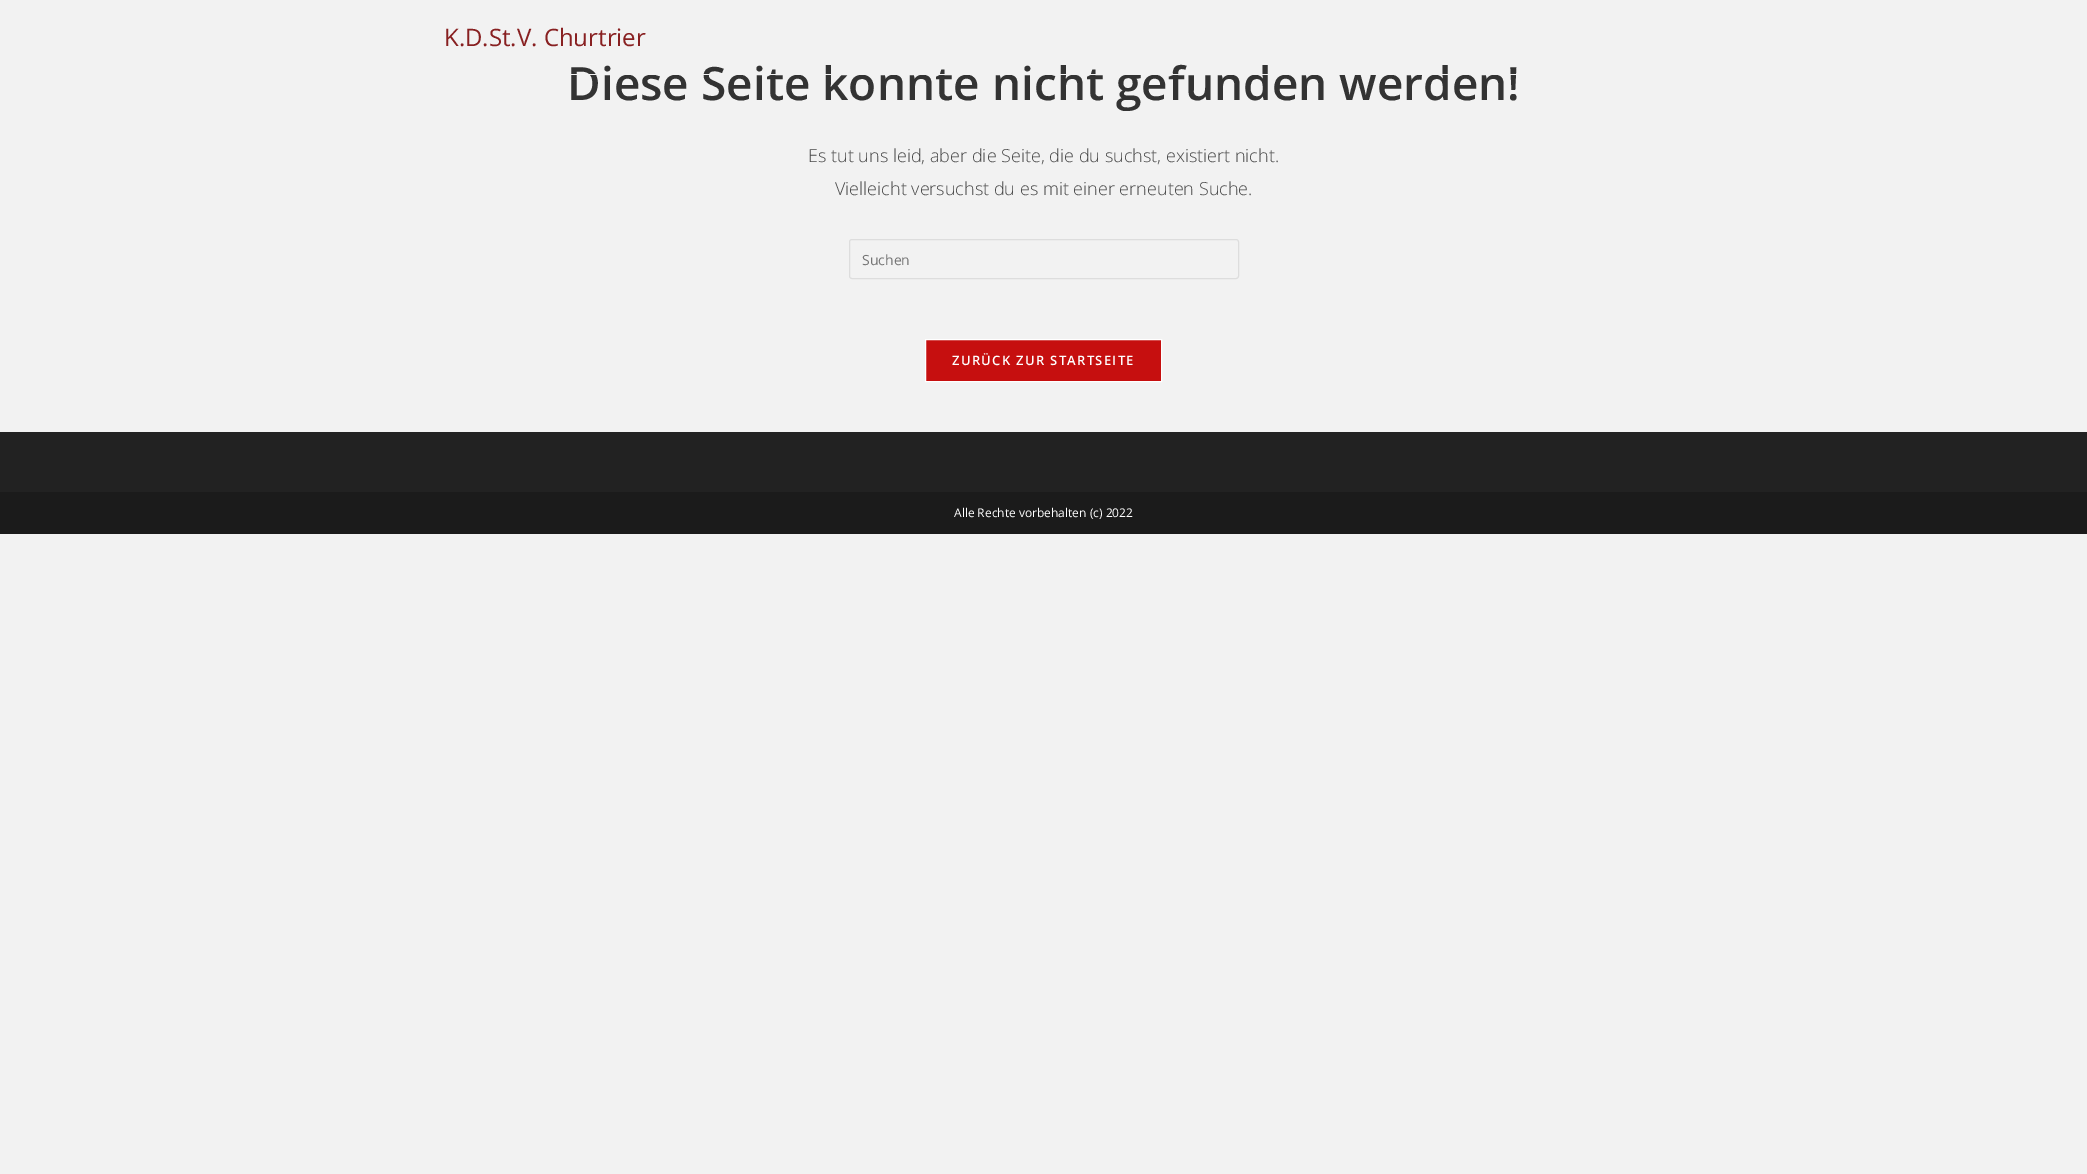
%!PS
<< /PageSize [2087 1174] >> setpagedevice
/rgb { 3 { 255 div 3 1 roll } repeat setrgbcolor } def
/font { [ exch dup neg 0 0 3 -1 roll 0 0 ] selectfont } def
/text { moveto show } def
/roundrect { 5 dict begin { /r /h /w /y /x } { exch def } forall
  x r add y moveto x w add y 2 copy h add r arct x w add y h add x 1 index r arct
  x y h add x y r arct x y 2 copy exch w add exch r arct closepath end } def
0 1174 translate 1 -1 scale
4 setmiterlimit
242 242 242 rgb
0 0 2087 1174 rectfill
221 221 221 rgb
849.5 239.5 389 39 2.5 roundrect stroke
198 15 15 rgb
925.5 339.5 moveto 236 0 rlineto 0 42 rlineto -236 0 rlineto closepath gsave fill grestore
255 255 255 rgb
stroke
34 34 34 rgb
0 432 2087 60 rectfill
27 27 27 rgb
0 492 2087 42 rectfill
/OpenSans-Regular 24 font
136 32 33 rgb
(K.D.St.V. Churtrier) 444 46 text
/OpenSans-SemiBold 46 font
51 51 51 rgb
(Diese Seite konnte nicht gefunden werden!) 567 100 text
242 242 242 rgb
571 74 946 1 rectfill
/OpenSans-Light 18 font
74 74 74 rgb
(Es tut uns leid, aber die Seite, die du suchst, existiert nicht.) 808 162 text
(Vielleicht versuchst du es mit einer erneuten Suche.) 835 195 text
/OpenSans-Regular 14 font
117 117 117 rgb
(Suchen) 862 265 text
/OpenSans-SemiBold 13 font
255 255 255 rgb
952 365 moveto 1.3 0 (ZURÜCK ZUR STARTSEITE) ashow
/OpenSans-Regular 12 font
(Alle Rechte vorbehalten \(c\) 2022) 954 517 text
showpage
